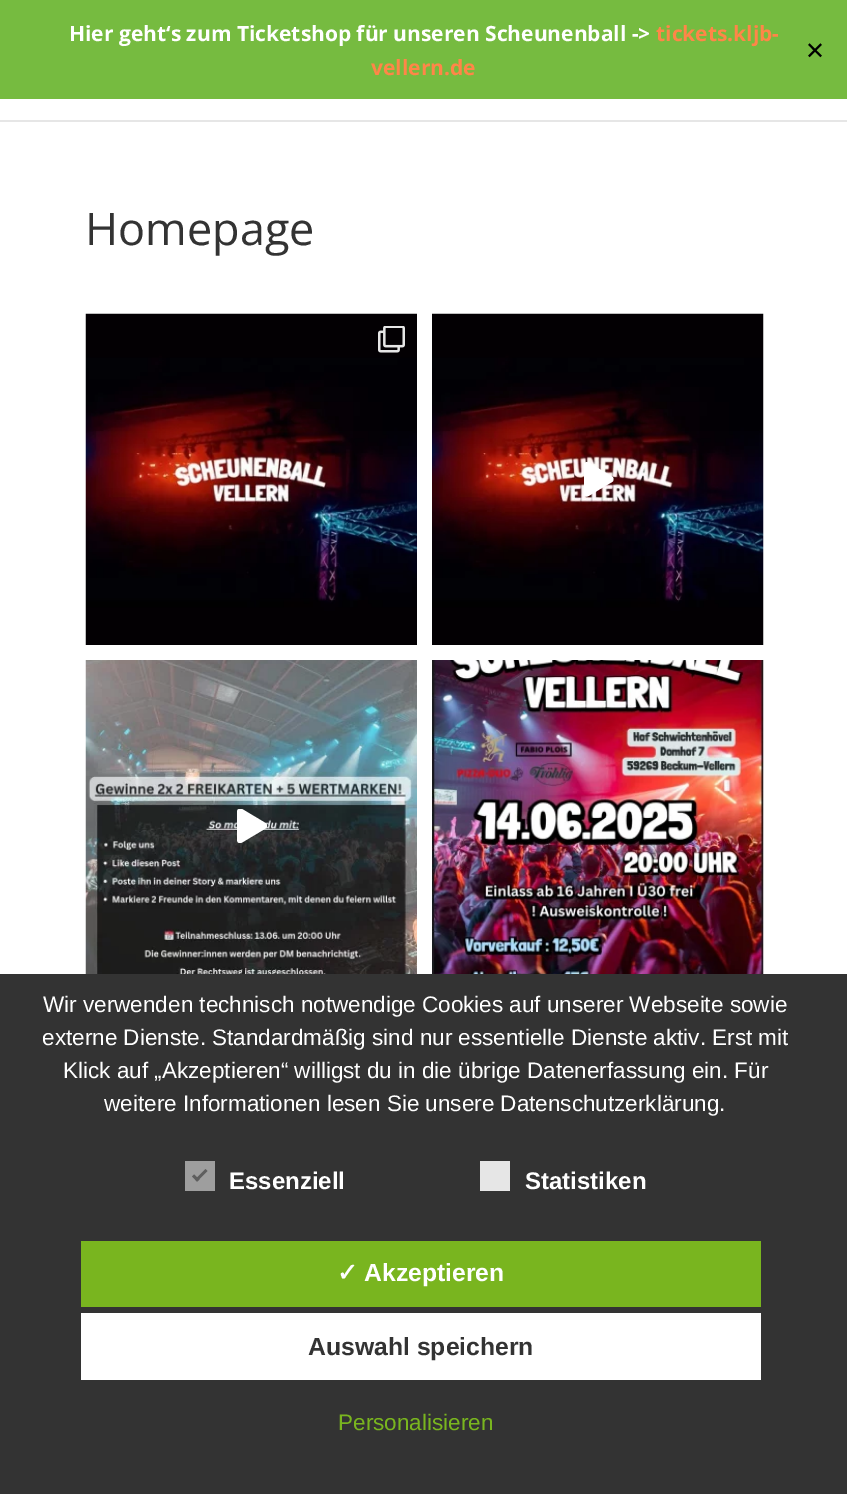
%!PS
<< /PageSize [847 1494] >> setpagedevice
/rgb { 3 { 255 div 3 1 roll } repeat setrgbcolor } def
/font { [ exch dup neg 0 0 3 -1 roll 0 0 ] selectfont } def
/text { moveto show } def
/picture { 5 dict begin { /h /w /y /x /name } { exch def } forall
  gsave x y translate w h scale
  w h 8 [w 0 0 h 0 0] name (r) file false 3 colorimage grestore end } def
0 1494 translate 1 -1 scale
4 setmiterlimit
255 255 255 rgb
0 0 847 1494 rectfill
230 230 230 rgb
0 120 moveto 0 2 rlineto 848 0 rlineto 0 -120 rlineto 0 118 rlineto closepath fill
118 187 64 rgb
0 0 847 99 rectfill
(img_01.rgb) 85 313 332 332 picture
(img_02.rgb) 378 326 27 27 picture
(img_03.rgb) 432 313 332 332 picture
gsave
584 462 30 35 rectclip
255 255 255 rgb
612 476.5 moveto -23.5 -14 rlineto -2 -1 -5 0 -5 2.5 rcurveto 0 28.5 rlineto 0 2.5 2.5 4 5 2.5 rcurveto 23.5 -14 rlineto 2 -1 2 -4.5 0 -5.5 rcurveto closepath fill
grestore
(img_04.rgb) 85 660 332 314 picture
gsave
237 809 30 34 rectclip
255 255 255 rgb
265.5 823 moveto -23.5 -14 rlineto -2 -1 -5 0 -5 2.5 rcurveto 0 28.5 rlineto 0 2.5 2.5 4 5 2.5 rcurveto 23.5 -14 rlineto 2 -1 2 -4.5 0 -5.5 rcurveto closepath fill
grestore
(img_05.rgb) 432 660 332 314 picture
51 51 51 rgb
0 974 847 520 rectfill
158 158 158 rgb
185 1161 30 30 rectfill
94 94 94 rgb
205.5 1169 moveto 2 2 rlineto -10.5 10.5 rlineto -2 -2 rlineto closepath fill
194 1174.5 moveto 5.5 5 rlineto -2.5 2 rlineto -5 -5 rlineto closepath fill
230 230 230 rgb
480 1161 30 30 rectfill
121 181 31 rgb
81 1241 680 66 rectfill
255 255 255 rgb
81 1313 680 67 rectfill
/OpenSans-Bold 21 font
(Hier geht‘s zum Ticketshop für unseren Scheunenball ->) 69 41 text
255 134 72 rgb
(tickets.kljb-) 656 41 text
(vellern.de) 371 75 text
/DejaVuSans-Regular 24 font
0 0 0 rgb
(✕) 805 59 text
/OpenSans-Regular 45 font
51 51 51 rgb
(Homepage) 85 245 text
/LiberationSans-Regular 22.5 font
255 255 255 rgb
(Wir verwenden technisch notwendige Cookies auf unserer Webseite sowie) 43 1012 text
(externe Dienste. Standardmäßig sind nur essentielle Dienste aktiv. Erst mit) 42 1045 text
(Klick auf „Akzeptieren“ willigst du in die übrige Datenerfassung ein. Für) 63 1078 text
(weitere Informationen lesen Sie unsere Datenschutzerklärung.) 104 1111 text
/LiberationSans-Bold 24 font
(Essenziell) 229 1189 text
(Statistiken) 525 1189 text
/DejaVuSans-Bold 24.75 font
(✓) 337 1281 text
/LiberationSans-Bold 24.75 font
(Akzeptieren) 364 1281 text
51 51 51 rgb
(Auswahl speichern) 308 1355 text
/LiberationSans-Regular 22.5 font
121 181 31 rgb
(Personalisieren) 338 1430 text
showpage
